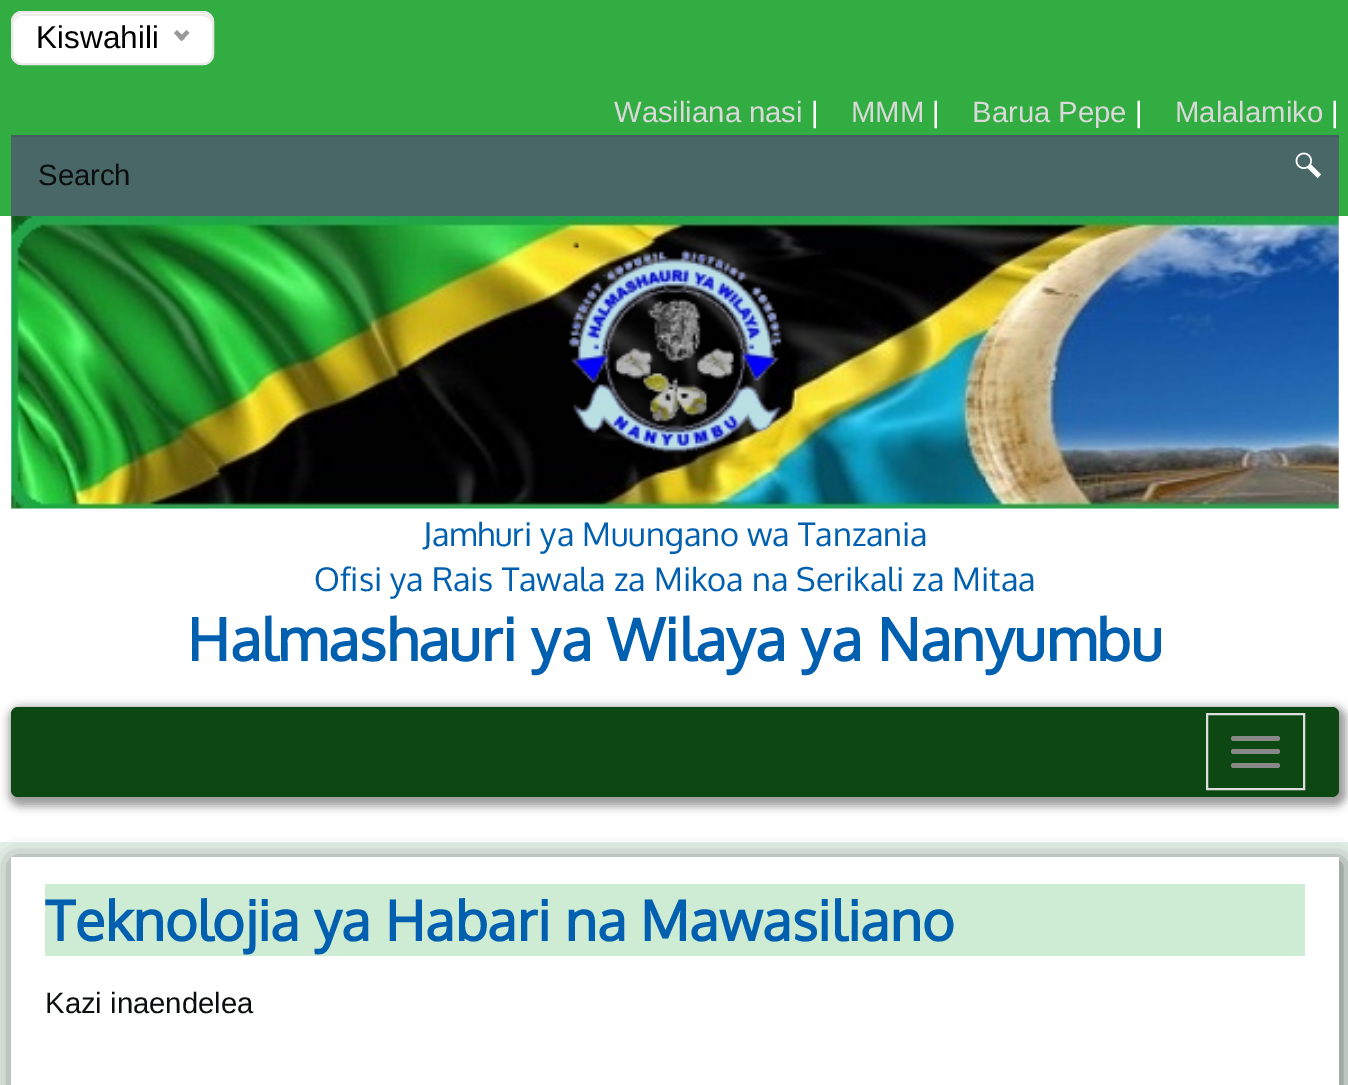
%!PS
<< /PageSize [1348 1085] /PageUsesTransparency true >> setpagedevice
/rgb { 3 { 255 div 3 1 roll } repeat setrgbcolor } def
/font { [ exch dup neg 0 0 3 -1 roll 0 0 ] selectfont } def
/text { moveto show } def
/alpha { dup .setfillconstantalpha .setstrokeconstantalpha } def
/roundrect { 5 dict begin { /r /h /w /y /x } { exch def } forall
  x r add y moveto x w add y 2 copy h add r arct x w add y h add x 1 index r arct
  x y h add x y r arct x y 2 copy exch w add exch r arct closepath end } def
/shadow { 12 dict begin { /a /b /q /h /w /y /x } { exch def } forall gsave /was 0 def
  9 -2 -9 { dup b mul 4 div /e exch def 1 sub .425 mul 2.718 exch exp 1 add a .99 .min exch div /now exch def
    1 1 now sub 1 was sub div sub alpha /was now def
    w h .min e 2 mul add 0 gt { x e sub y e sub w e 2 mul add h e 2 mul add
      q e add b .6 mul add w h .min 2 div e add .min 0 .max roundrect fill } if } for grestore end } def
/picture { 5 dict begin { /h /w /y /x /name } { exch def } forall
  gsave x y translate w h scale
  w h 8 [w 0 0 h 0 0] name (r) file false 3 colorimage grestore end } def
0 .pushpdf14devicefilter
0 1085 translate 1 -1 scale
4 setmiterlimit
228 240 232 rgb
0 0 1348 1085 rectfill
50 173 65 rgb
0 0 1348 216 rectfill
255 255 255 rgb
11 11 203 54 11 roundrect fill
236 236 236 rgb
22 16 moveto 180 0 rlineto 5 0 10 4 10 9 rcurveto 0 -2 rlineto 0 -5 -4 -9 -9 -9 rcurveto -180 0 rlineto -5 0 -9 4 -9 9 rcurveto 0 2 rlineto 0 -5 4 -9 8 -9 rcurveto closepath fill
232 232 232 rgb
2 setlinewidth
12 12 201 52 10 roundrect stroke
153 153 153 rgb
186.5 30 moveto 3 3 rlineto -8 8 rlineto -3 -3 rlineto closepath fill
177 30 moveto 8 8 rlineto -3.5 3 rlineto -7.5 -8 rlineto closepath fill
74 103 103 rgb
11 137 1328 79 rectfill
68 95 95 rgb
11 135 1328 2 rectfill
(img_01.rgb) 1295 152 27 27 picture
255 255 255 rgb
0 216 1348 626 rectfill
(img_02.rgb) 11 216 1328 293 picture
(img_03.rgb) 568 249 214 204 picture
153 153 153 rgb
9 707 1337 99 11 4.5 1 shadow
13 71 17 rgb
11 707 1328 90 7 roundrect fill
221 221 221 rgb
1207 714 97 75 rectstroke
136 136 136 rgb
1231 736 49 5 2.5 roundrect fill
1231 749 49 5 2.5 roundrect fill
1231 763 49 5 2.5 roundrect fill
50 50 50 rgb
14 862 1327 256 0 11 0.75 shadow
255 255 255 rgb
11 857 1328 228 rectfill
206 235 211 rgb
45 884 1260 72 rectfill
/LiberationSans-Regular 31.5 font
0 0 0 rgb
(Kiswahili) 36 48 text
/LiberationSans-Regular 29.25 font
217 217 217 rgb
(Wasiliana nasi) 614 122 text
255 255 255 rgb
(|) 811 122 text
217 217 217 rgb
(MMM) 851 122 text
255 255 255 rgb
(|) 932 122 text
217 217 217 rgb
(Barua Pepe) 972 122 text
255 255 255 rgb
(|) 1135 122 text
217 217 217 rgb
(Malalamiko) 1175 122 text
255 255 255 rgb
(|) 1331 122 text
10 14 14 rgb
(Search) 38 185 text
/Oxygen-Regular 32.5 font
0 95 175 rgb
(Jamhuri ya Muungano wa Tanzania) 423 546 text
(Ofisi ya Rais Tawala za Mikoa na Serikali za Mitaa) 314 591 text
/Oxygen-Bold 58.5 font
(Halmashauri ya Wilaya ya Nanyumbu) 187 661 text
/Oxygen-Bold 55.25 font
(Teknolojia ya Habari na Mawasiliano) 45 941 text
/LiberationSans-Regular 29.25 font
10 14 14 rgb
(Kazi inaendelea) 45 1013 text
.poppdf14devicefilter showpage
